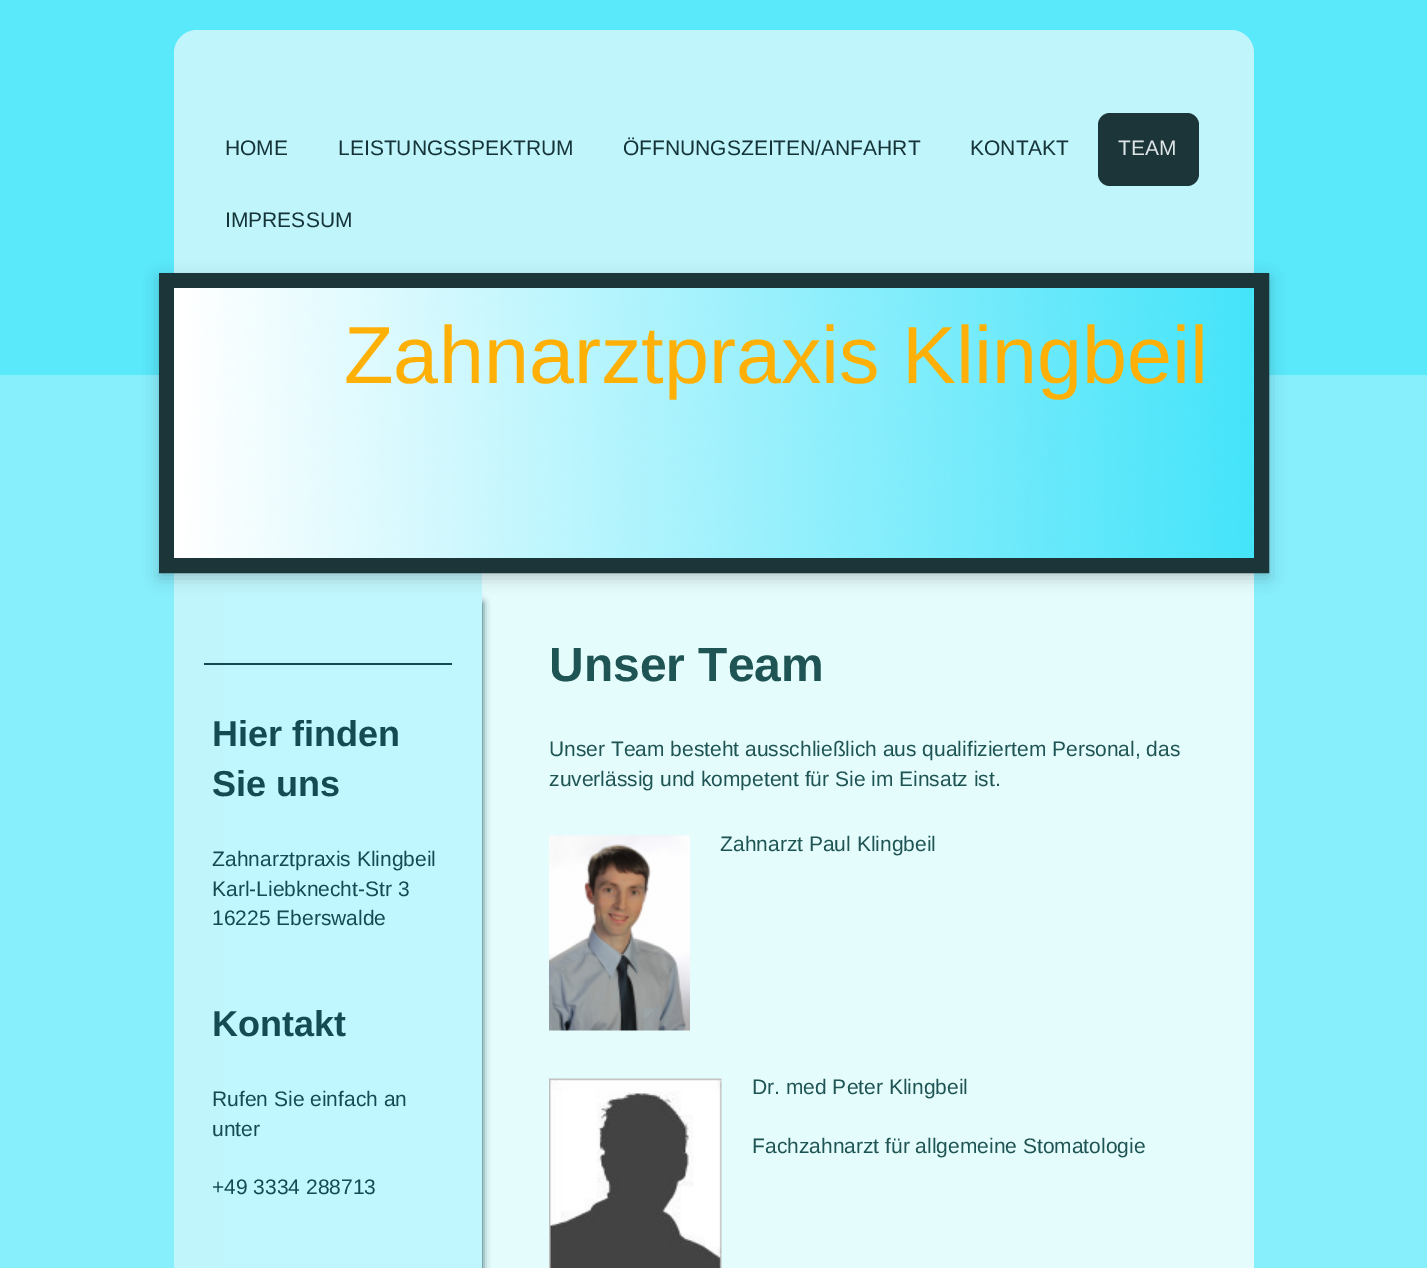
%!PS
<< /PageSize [1427 1268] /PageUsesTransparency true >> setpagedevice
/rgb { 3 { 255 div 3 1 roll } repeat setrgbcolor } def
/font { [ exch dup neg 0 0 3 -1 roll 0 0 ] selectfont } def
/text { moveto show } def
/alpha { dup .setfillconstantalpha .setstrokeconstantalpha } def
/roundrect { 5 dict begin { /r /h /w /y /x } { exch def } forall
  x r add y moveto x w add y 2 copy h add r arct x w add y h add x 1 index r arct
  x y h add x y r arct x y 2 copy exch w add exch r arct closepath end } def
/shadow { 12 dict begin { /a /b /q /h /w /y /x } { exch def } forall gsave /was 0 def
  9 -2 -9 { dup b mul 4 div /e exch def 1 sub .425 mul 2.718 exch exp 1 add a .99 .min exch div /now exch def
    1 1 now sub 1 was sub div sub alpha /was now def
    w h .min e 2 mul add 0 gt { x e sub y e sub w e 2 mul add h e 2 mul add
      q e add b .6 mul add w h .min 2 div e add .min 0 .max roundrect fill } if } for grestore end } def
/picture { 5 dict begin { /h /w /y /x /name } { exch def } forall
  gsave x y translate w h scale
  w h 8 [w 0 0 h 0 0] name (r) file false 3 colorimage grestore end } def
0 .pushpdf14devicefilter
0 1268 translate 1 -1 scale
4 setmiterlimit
135 238 252 rgb
0 0 1427 1268 rectfill
90 232 251 rgb
0 0 1427 375 rectfill
192 245 252 rgb
174 30 1080 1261 23 roundrect fill
28 53 56 rgb
1098 113 101 73 12 roundrect fill
229 252 252 rgb
482 573 772 695 rectfill
20 74 82 rgb
234 603 248 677 0 4 1 shadow
192 246 254 rgb
223 592 259 676 rectfill
0 0 0 rgb
159 278 1110 300 0 7.5 0.2 shadow
28 53 56 rgb
15 setlinewidth
166.5 280.5 1095 285 rectstroke
(img_01.rgb) 174 288 1080 270 picture
(img_02.rgb) 549 835 141 196 picture
(img_03.rgb) 549 1078 173 190 picture
20 74 82 rgb
204 663 248 2 rectfill
/LiberationSans-Regular 21 font
21 52 56 rgb
(HOME) 225 155 text
(LEISTUNGSSPEKTRUM) 338 155 text
(ÖFFNUNGSZEITEN/ANFAHRT) 623 155 text
(KONTAKT) 970 155 text
222 229 230 rgb
(TEAM) 1118 155 text
21 52 56 rgb
(IMPRESSUM) 225 227 text
/LiberationSans-Regular 81 font
254 176 6 rgb
(Zahnarztpraxis Klingbeil) 344 383 text
/LiberationSans-Bold 48 font
30 84 84 rgb
(Unser Team) 549 681 text
/LiberationSans-Regular 21 font
(Unser Team besteht ausschließlich aus qualifiziertem Personal, das) 549 756 text
(zuverlässig und kompetent für Sie im Einsatz ist.) 549 786 text
(Zahnarzt Paul Klingbeil) 720 851 text
(Dr. med Peter Klingbeil) 752 1094 text
(Fachzahnarzt für allgemeine Stomatologie) 752 1153 text
/LiberationSans-Bold 36 font
20 74 82 rgb
(Hier finden) 212 746 text
(Sie uns) 212 796 text
/LiberationSans-Regular 21 font
(Zahnarztpraxis Klingbeil) 212 866 text
(Karl-Liebknecht-Str 3) 212 896 text
(16225 Eberswalde) 212 925 text
/LiberationSans-Bold 36 font
(Kontakt) 212 1036 text
/LiberationSans-Regular 21 font
(Rufen Sie einfach an) 212 1106 text
(unter) 212 1136 text
(+49 3334 288713) 212 1194 text
.poppdf14devicefilter showpage
